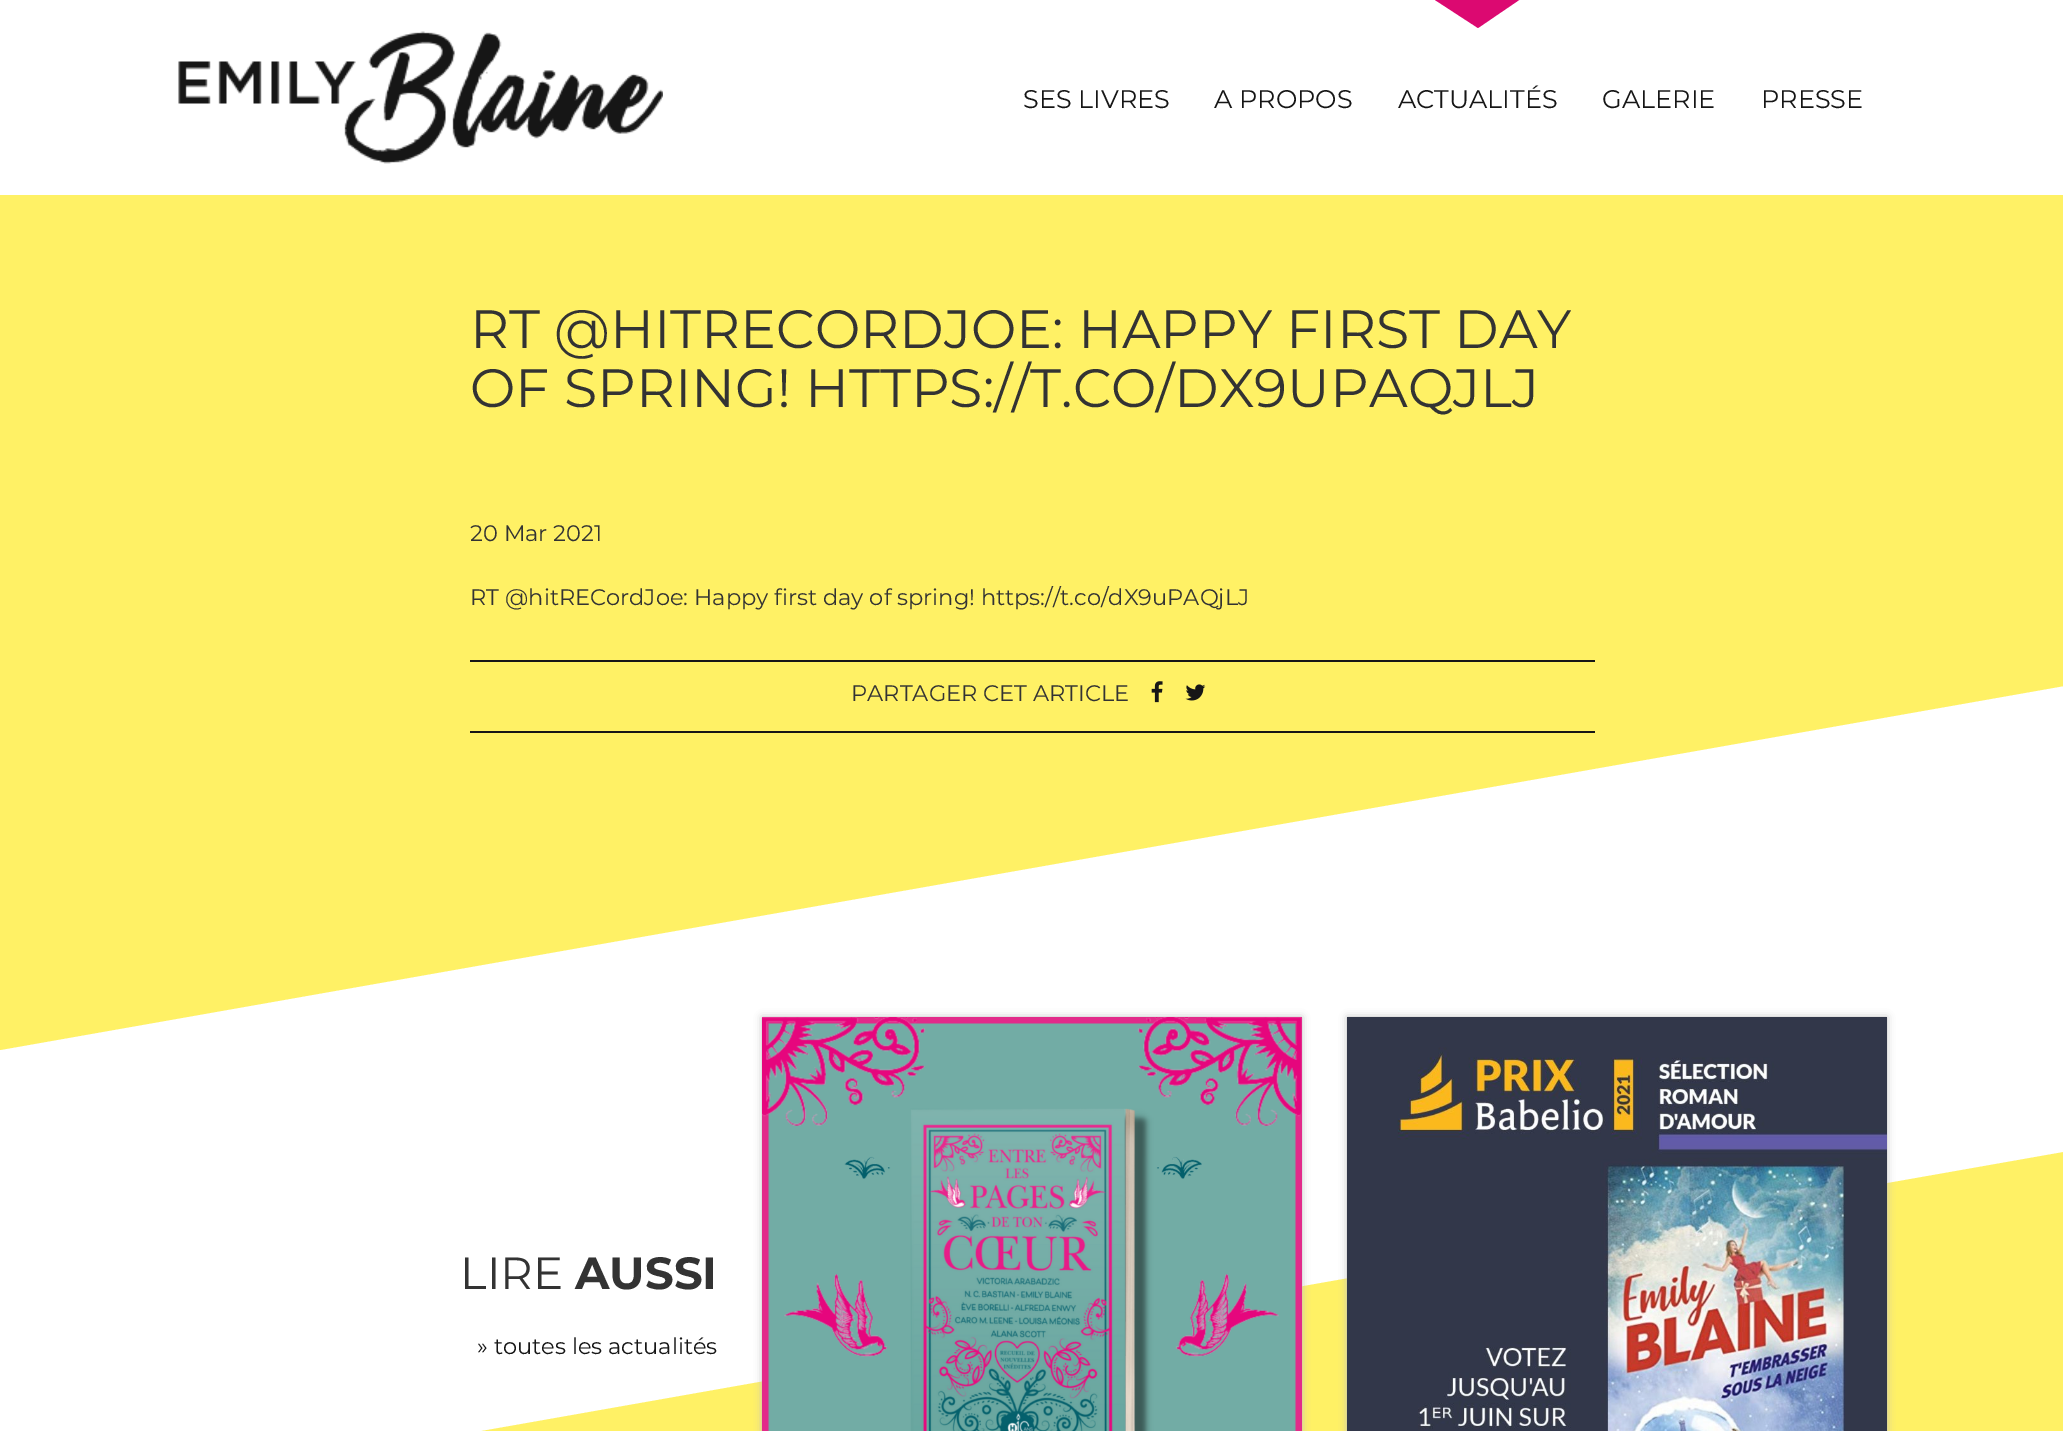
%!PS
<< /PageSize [2063 1431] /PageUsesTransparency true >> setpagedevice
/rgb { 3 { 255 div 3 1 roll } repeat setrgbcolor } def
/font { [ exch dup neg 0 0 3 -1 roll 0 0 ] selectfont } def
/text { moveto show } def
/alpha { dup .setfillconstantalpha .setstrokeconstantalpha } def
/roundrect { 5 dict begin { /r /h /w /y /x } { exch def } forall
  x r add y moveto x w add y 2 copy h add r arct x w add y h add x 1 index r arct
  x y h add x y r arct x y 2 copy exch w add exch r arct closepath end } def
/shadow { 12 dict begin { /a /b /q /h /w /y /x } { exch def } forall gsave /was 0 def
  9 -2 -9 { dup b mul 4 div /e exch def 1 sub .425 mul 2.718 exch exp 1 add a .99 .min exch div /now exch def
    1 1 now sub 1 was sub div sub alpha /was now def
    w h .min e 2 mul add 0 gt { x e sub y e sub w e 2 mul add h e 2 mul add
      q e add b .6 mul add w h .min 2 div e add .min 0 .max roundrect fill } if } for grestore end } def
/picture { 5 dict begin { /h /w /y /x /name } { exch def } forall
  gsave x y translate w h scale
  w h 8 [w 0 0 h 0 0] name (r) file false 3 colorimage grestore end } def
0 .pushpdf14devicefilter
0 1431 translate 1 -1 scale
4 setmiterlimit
255 255 255 rgb
0 0 2063 1431 rectfill
255 241 101 rgb
0 0 moveto 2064 -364 rlineto 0 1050 rlineto -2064 364 rlineto closepath fill
255 255 255 rgb
0 0 2063 195 rectfill
(img_01.rgb) 178 31 485 133 picture
220 9 113 rgb
1432 -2 moveto 90 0 rlineto -44 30 rlineto closepath fill
22 22 22 rgb
470 660 1125 2 rectfill
470 731 1125 2 rectfill
(img_02.rgb) 1151 681 12 22 picture
(img_03.rgb) 1185 684 21 17 picture
255 241 101 rgb
0 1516 moveto 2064 -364 rlineto 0 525 rlineto -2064 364 rlineto closepath fill
192 192 192 rgb
762 1017 540 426 0 4 1 shadow
(img_04.rgb) 762 1017 540 414 picture
1347 1017 540 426 0 4 1 shadow
(img_05.rgb) 1347 1017 540 414 picture
/Montserrat-Regular 25.5 font
22 22 22 rgb
(SES LIVRES) 1023 108 text
(A PROPOS) 1214 108 text
(ACTUALITÉS) 1398 108 text
(GALERIE) 1602 108 text
(PRESSE) 1761 108 text
/Montserrat-Regular 54 font
51 51 51 rgb
(RT @HITRECORDJOE: HAPPY FIRST DAY) 470 348 text
(OF SPRING! HTTPS://T.CO/DX9UPAQJLJ) 470 407 text
/Montserrat-Regular 22.5 font
(20 Mar 2021) 470 541 text
(RT @hitRECordJoe: Happy first day of spring! https://t.co/dX9uPAQjLJ) 470 605 text
(PARTAGER CET ARTICLE) 851 701 text
/Montserrat-Regular 45 font
(LIRE) 460 1289 text
/Montserrat-Bold 45 font
(AUSSI) 575 1289 text
/Montserrat-Regular 22.5 font
22 22 22 rgb
(» toutes les actualités) 477 1354 text
.poppdf14devicefilter showpage
